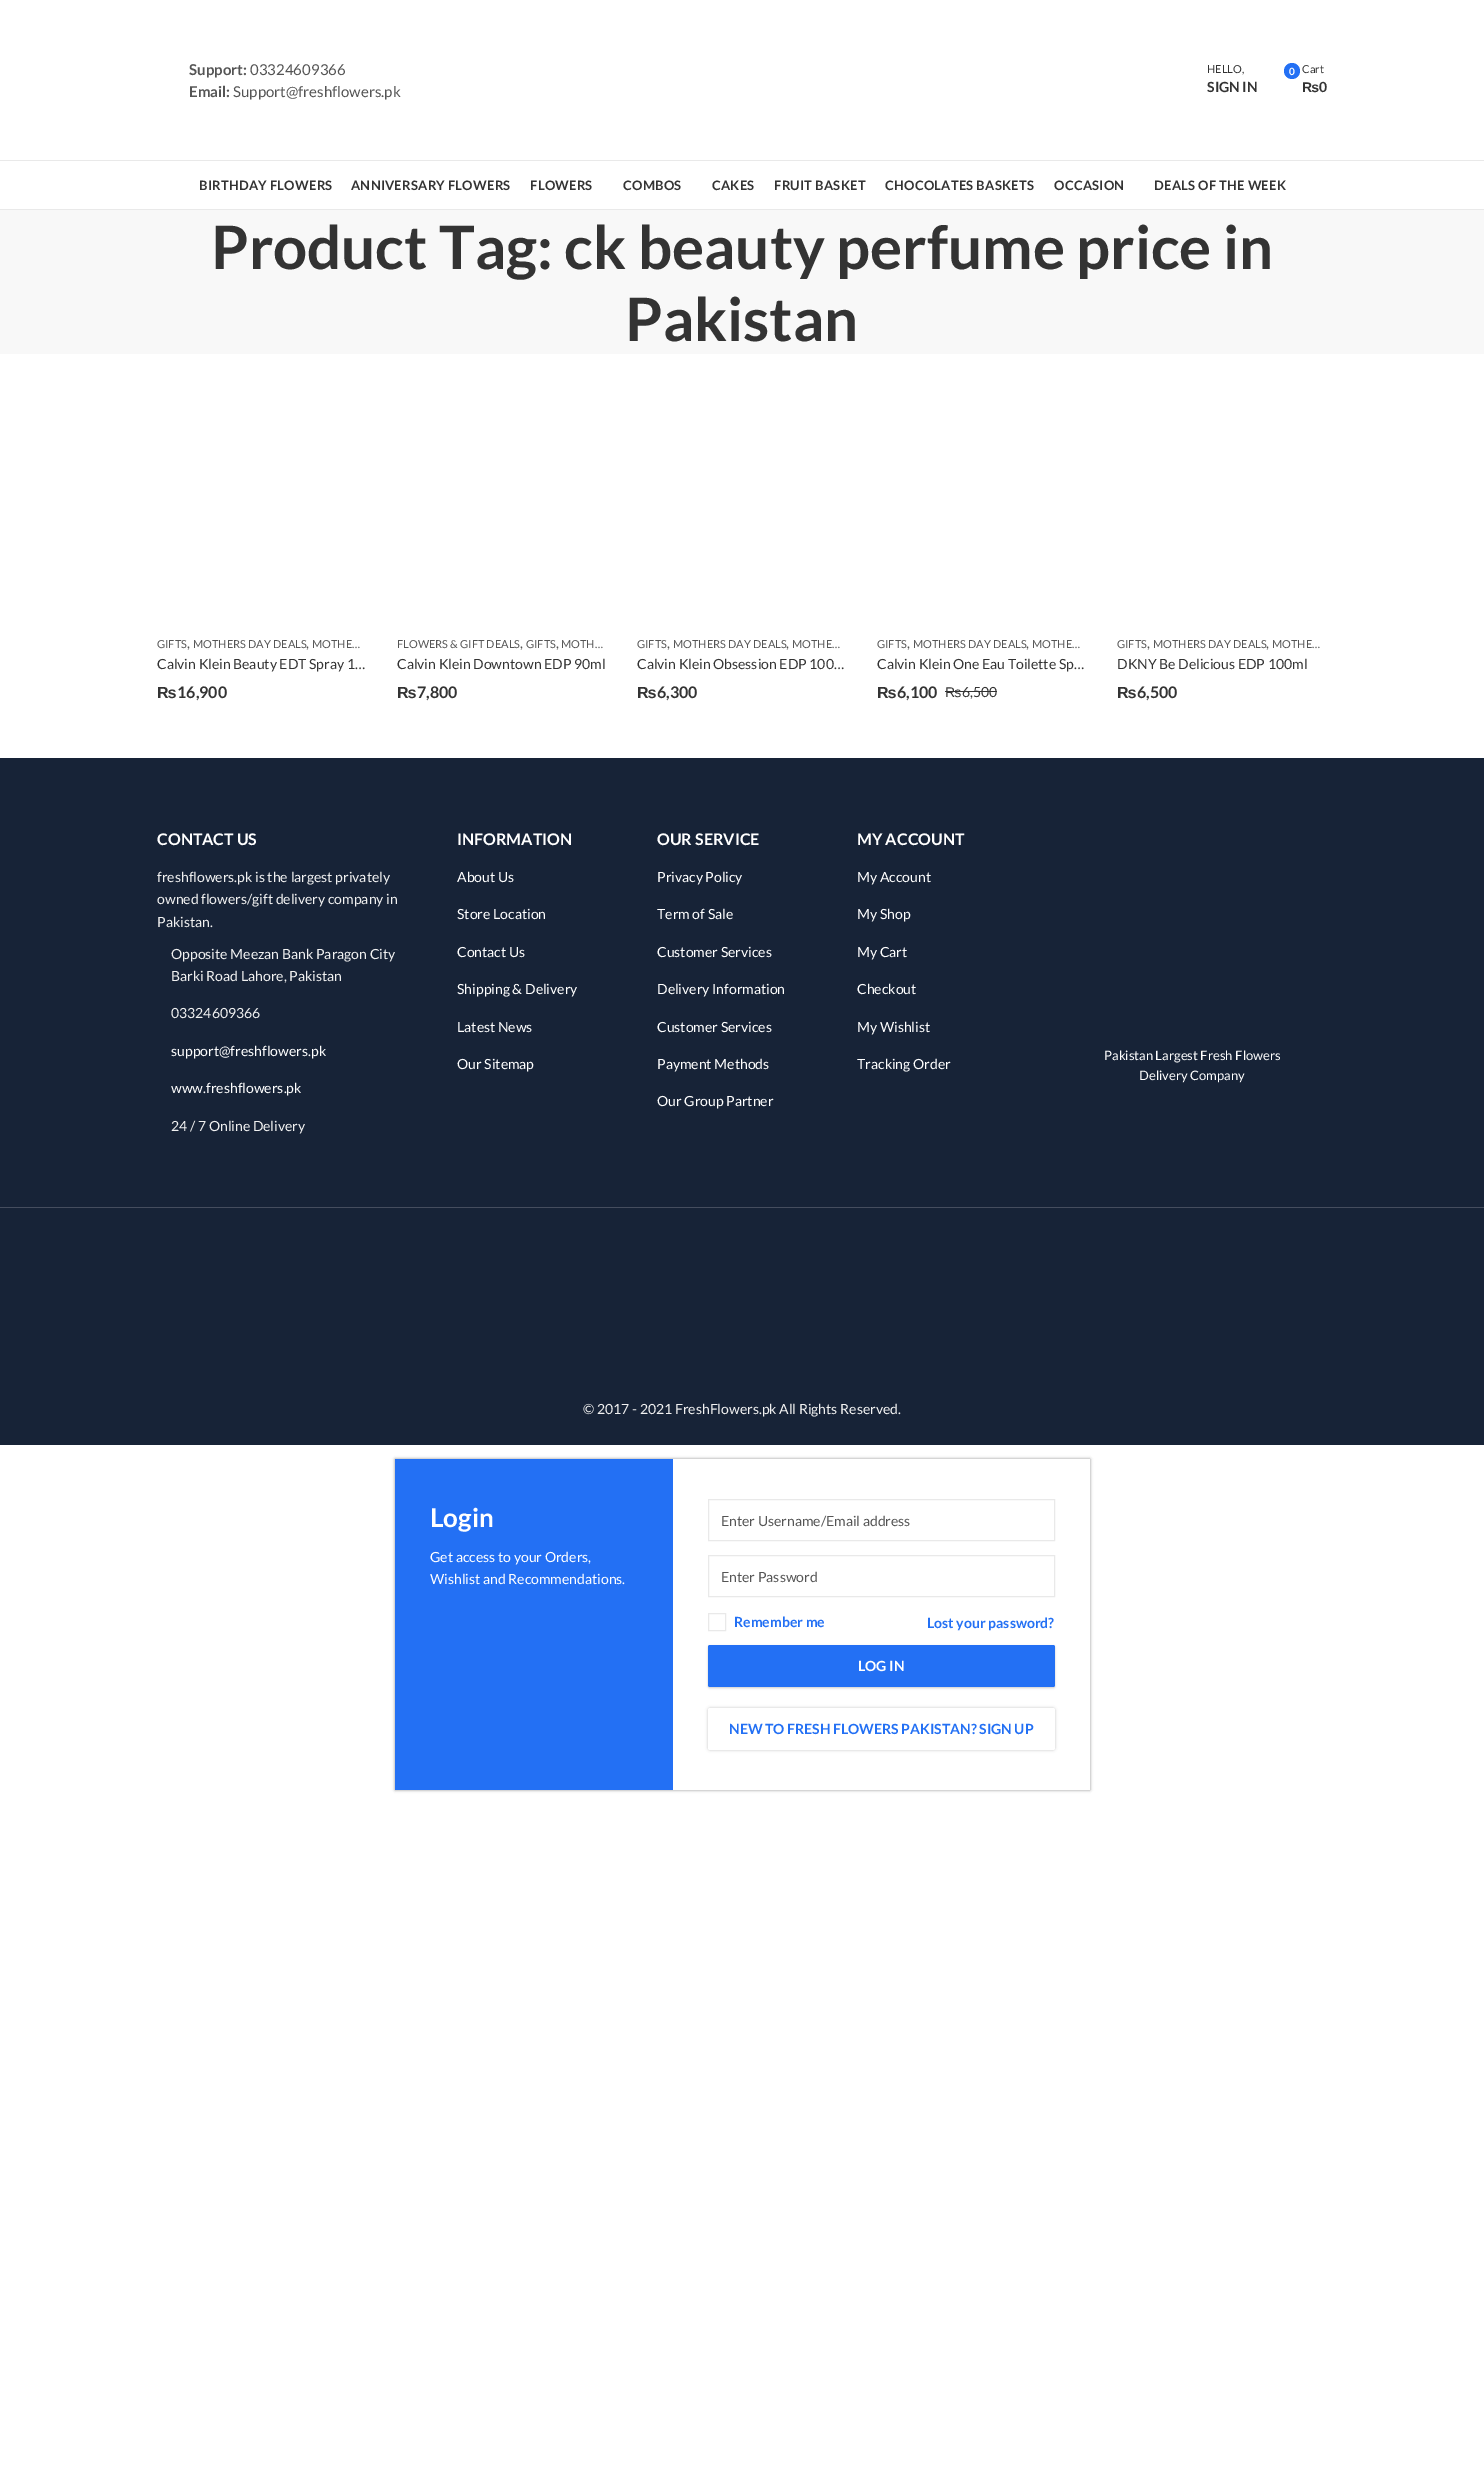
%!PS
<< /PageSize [1484 2491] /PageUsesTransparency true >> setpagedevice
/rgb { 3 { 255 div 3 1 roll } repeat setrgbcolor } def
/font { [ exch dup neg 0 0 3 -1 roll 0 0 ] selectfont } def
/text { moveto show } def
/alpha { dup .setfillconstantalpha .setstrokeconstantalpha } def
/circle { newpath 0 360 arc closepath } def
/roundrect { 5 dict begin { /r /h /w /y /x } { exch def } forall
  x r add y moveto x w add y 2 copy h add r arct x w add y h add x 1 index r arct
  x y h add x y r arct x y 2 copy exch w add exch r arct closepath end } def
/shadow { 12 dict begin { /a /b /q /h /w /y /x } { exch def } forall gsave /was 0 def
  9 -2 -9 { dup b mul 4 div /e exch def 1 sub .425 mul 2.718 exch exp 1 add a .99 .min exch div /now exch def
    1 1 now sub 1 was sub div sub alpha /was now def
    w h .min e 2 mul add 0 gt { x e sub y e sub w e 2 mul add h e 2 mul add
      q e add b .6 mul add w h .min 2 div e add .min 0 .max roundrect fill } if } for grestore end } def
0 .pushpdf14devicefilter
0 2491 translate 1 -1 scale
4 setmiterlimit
255 255 255 rgb
0 0 1484 2491 rectfill
35 112 244 rgb
1292 71 8 circle fill
233 233 233 rgb
0 160 1484 1 rectfill
0 209 1484 1 rectfill
248 248 248 rgb
0 210 1484 144 rectfill
51 51 51 rgb
945 691 17 1 rectfill
962 691 35 1 rectfill
23 35 55 rgb
0 758 1484 449 rectfill
0 1208 1484 237 rectfill
69 77 94 rgb
0 1207 1484 1 rectfill
gsave
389 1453 moveto 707 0 rlineto 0 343 rlineto -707 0 rlineto closepath 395 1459 moveto 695 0 rlineto 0 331 rlineto -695 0 rlineto closepath eoclip newpath
0 0 0 rgb
395 1459 695 331 0 1.5 0.2 shadow
395 1459 695 331 0 1.5 0.2 shadow
grestore
35 112 244 rgb
395 1459 278 331 rectfill
233 233 233 rgb
708.5 1499.5 346 41 rectstroke
708.5 1555.5 346 41 rectstroke
708.5 1613.5 17 17 rectstroke
0 0 0 rgb
708 1646 347 42 2 1 0.2 shadow
35 112 244 rgb
708 1645 347 42 2 roundrect fill
0 0 0 rgb
708 1708 347 42 2 1.5 0.2 shadow
255 255 255 rgb
708 1708 347 42 2 roundrect fill
/Lato-Bold 15 font
85 85 85 rgb
(Support:) 189 75 text
/Lato-Regular 15 font
(03324609366) 250 75 text
/Lato-Bold 15 font
(Email:) 189 97 text
/Lato-Regular 15 font
(Support@freshflowers.pk) 233 97 text
/Lato-Regular 11 font
51 51 51 rgb
(HELLO,) 1207 73 text
/Lato-Bold 14 font
(SIGN IN) 1207 92 text
/Lato-Bold 10 font
255 255 255 rgb
(0) 1289 75 text
/Lato-Regular 11 font
51 51 51 rgb
(Cart) 1302 73 text
/LiberationSans-Bold 14 font
(₨) 1302 92 text
/Lato-Bold 14 font
(0) 1319 92 text
/Lato-Bold 13 font
199 190 moveto 0.25 0 (BIRTHDAY FLOWERS) ashow
351 190 moveto 0.25 0 (ANNIVERSARY FLOWERS) ashow
530 190 moveto 0.25 0 (FLOWERS) ashow
623 190 moveto 0.25 0 (COMBOS) ashow
712 190 moveto 0.25 0 (CAKES) ashow
774 190 moveto 0.25 0 (FRUIT BASKET) ashow
885 190 moveto 0.25 0 (CHOCOLATES BASKETS) ashow
1054 190 moveto 0.25 0 (OCCASION) ashow
1154 190 moveto 0.25 0 (DEALS OF THE WEEK) ashow
/Lato-Bold 60 font
(Product Tag: ck beauty perfume price in) 211 269 text
(Pakistan) 625 341 text
/Lato-Regular 11 font
85 85 85 rgb
(GIFTS) 157 648 text
/Lato-Regular 14 font
(,) 187 648 text
/Lato-Regular 11 font
(MOTHERS DAY DEALS) 193 648 text
/Lato-Regular 14 font
(,) 306 648 text
/Lato-Regular 11 font
(MOTHE…) 312 648 text
/Lato-Regular 14 font
51 51 51 rgb
(Calvin Klein Beauty EDT Spray 1…) 157 669 text
/LiberationSans-Bold 16 font
(₨) 157 698 text
/Lato-Bold 16 font
(16,900) 177 698 text
/Lato-Regular 11 font
85 85 85 rgb
(FLOWERS & GIFT DEALS) 397 648 text
/Lato-Regular 14 font
(,) 520 648 text
/Lato-Regular 11 font
(GIFTS) 526 648 text
/Lato-Regular 14 font
(,) 556 648 text
/Lato-Regular 11 font
(MOTH…) 561 648 text
/Lato-Regular 14 font
51 51 51 rgb
(Calvin Klein Downtown EDP 90ml) 397 669 text
/LiberationSans-Bold 16 font
(₨) 397 698 text
/Lato-Bold 16 font
(7,800) 417 698 text
/Lato-Regular 11 font
85 85 85 rgb
(GIFTS) 637 648 text
/Lato-Regular 14 font
(,) 667 648 text
/Lato-Regular 11 font
(MOTHERS DAY DEALS) 673 648 text
/Lato-Regular 14 font
(,) 786 648 text
/Lato-Regular 11 font
(MOTHE…) 792 648 text
/Lato-Regular 14 font
51 51 51 rgb
(Calvin Klein Obsession EDP 100…) 637 669 text
/LiberationSans-Bold 16 font
(₨) 637 698 text
/Lato-Bold 16 font
(6,300) 657 698 text
/Lato-Regular 11 font
85 85 85 rgb
(GIFTS) 877 648 text
/Lato-Regular 14 font
(,) 907 648 text
/Lato-Regular 11 font
(MOTHERS DAY DEALS) 913 648 text
/Lato-Regular 14 font
(,) 1026 648 text
/Lato-Regular 11 font
(MOTHE…) 1032 648 text
/Lato-Regular 14 font
51 51 51 rgb
(Calvin Klein One Eau Toilette Sp…) 877 669 text
/LiberationSans-Bold 16 font
(₨) 877 698 text
/Lato-Bold 16 font
(6,100) 897 698 text
/LiberationSans-Regular 14 font
(₨) 945 697 text
/Lato-Regular 14 font
(6,500) 962 697 text
/Lato-Regular 11 font
85 85 85 rgb
(GIFTS) 1117 648 text
/Lato-Regular 14 font
(,) 1147 648 text
/Lato-Regular 11 font
(MOTHERS DAY DEALS) 1153 648 text
/Lato-Regular 14 font
(,) 1266 648 text
/Lato-Regular 11 font
(MOTHE…) 1272 648 text
/Lato-Regular 14 font
51 51 51 rgb
(DKNY Be Delicious EDP 100ml) 1117 669 text
/LiberationSans-Bold 16 font
(₨) 1117 698 text
/Lato-Bold 16 font
(6,500) 1137 698 text
255 255 255 rgb
(CONTACT US) 157 845 text
/Lato-Regular 14 font
241 241 241 rgb
(freshflowers.pk is the largest privately) 157 882 text
(owned flowers/gift delivery company in) 157 904 text
(Pakistan.) 157 927 text
(Opposite Meezan Bank Paragon City) 171 959 text
(Barki Road Lahore, Pakistan) 171 981 text
(03324609366) 171 1018 text
255 255 255 rgb
(support@freshflowers.pk) 171 1056 text
(www.freshflowers.pk) 171 1093 text
241 241 241 rgb
(24 / 7 Online Delivery) 171 1131 text
/Lato-Bold 16 font
255 255 255 rgb
(INFORMATION) 457 845 text
/Lato-Regular 14 font
(About Us) 457 882 text
(Store Location) 457 919 text
(Contact Us) 457 957 text
(Shipping & Delivery) 457 994 text
(Latest News) 457 1032 text
(Our Sitemap) 457 1069 text
/Lato-Bold 16 font
(OUR SERVICE) 657 845 text
/Lato-Regular 14 font
(Privacy Policy) 657 882 text
(Term of Sale) 657 919 text
(Customer Services) 657 957 text
(Delivery Information) 657 994 text
(Customer Services) 657 1032 text
(Payment Methods) 657 1069 text
(Our Group Partner) 657 1106 text
/Lato-Bold 16 font
(MY ACCOUNT) 857 845 text
/Lato-Regular 14 font
(My Account) 857 882 text
(My Shop) 857 919 text
(My Cart) 857 957 text
(Checkout) 857 994 text
(My Wishlist) 857 1032 text
(Tracking Order) 857 1069 text
/Lato-Regular 13 font
(Pakistan Largest Fresh Flowers) 1104 1060 text
(Delivery Company) 1139 1080 text
/Lato-Regular 14 font
241 241 241 rgb
(© 2017 - 2021 FreshFlowers.pk All Rights Reserved.) 583 1414 text
/Lato-Bold 26 font
255 255 255 rgb
(Login) 430 1527 text
/Lato-Regular 14 font
(Get access to your Orders,) 430 1562 text
(Wishlist and Recommendations.) 430 1584 text
85 85 85 rgb
(Enter Username/Email address) 721 1526 text
(Enter Password) 721 1582 text
/Lato-Bold 14 font
35 112 244 rgb
(Remember me) 734 1627 text
(Lost your password?) 927 1628 text
255 255 255 rgb
(LOG IN) 858 1671 text
35 112 244 rgb
(NEW TO FRESH FLOWERS PAKISTAN? SIGN UP) 729 1734 text
.poppdf14devicefilter showpage
